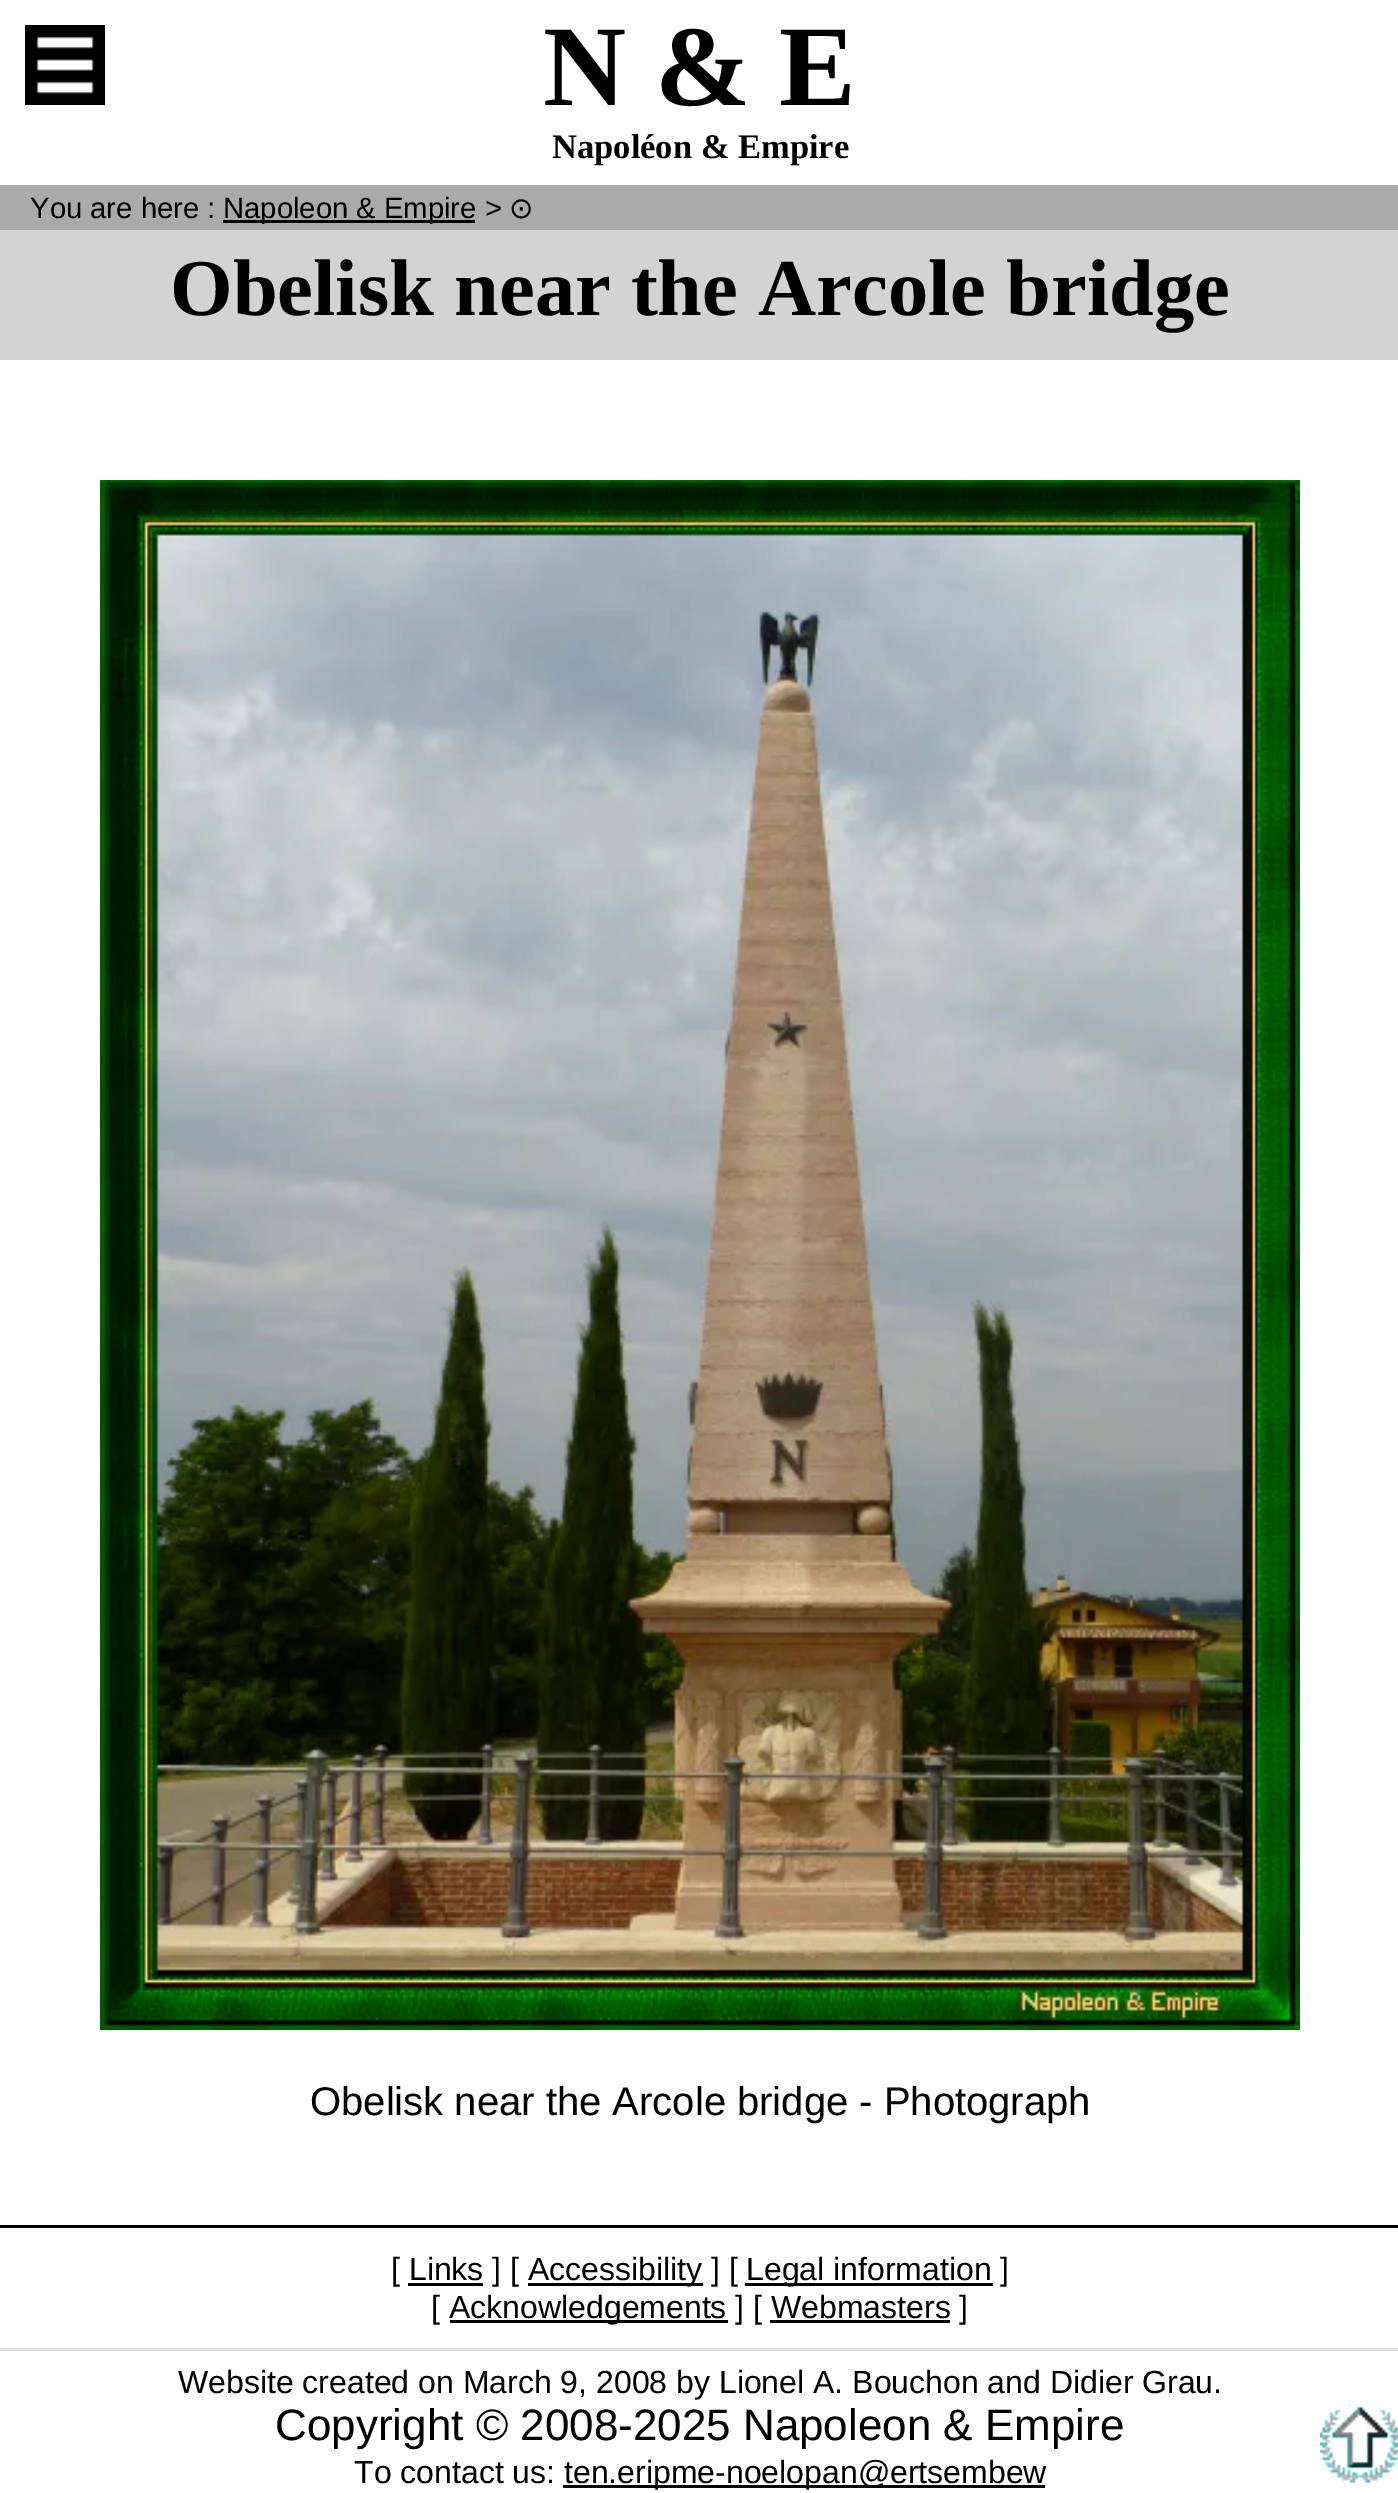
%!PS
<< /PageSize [1398 2493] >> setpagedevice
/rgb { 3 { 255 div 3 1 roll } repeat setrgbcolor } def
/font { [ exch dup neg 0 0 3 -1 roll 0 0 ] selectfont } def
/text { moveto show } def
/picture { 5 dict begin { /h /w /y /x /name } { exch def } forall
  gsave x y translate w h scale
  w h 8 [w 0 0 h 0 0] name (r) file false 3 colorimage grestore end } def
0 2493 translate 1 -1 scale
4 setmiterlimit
255 255 255 rgb
0 0 1398 2493 rectfill
0 0 0 rgb
25 25 80 80 rectfill
(img_01.rgb) 36 36 58 58 picture
170 170 170 rgb
0 185 1398 45 rectfill
0 0 0 rgb
223 220 252 3 rectfill
(img_02.rgb) 1320 2406 78 78 picture
211 211 211 rgb
0 230 1398 130 rectfill
(img_03.rgb) 100 480 1200 1550 picture
0 0 0 rgb
0 2225 1398 3 rectfill
227 227 227 rgb
0 2348 1398 3 rectfill
0 0 0 rgb
528 2283 175 3 rectfill
745 2283 248 3 rectfill
408 2283 75 3 rectfill
450 2320 278 3 rectfill
770 2320 180 3 rectfill
563 2485 482 3 rectfill
/LiberationSerif-Bold 115 font
(N & E) 543 105 text
/LiberationSerif-Bold 34.5 font
(Napoléon & Empire) 552 158 text
/LiberationSans-Regular 29.25 font
(You are here : N) 30 218 text
(apoleon & Empire >) 244 218 text
/DejaVuSans-Regular 29.25 font
(⊙) 509 218 text
/LiberationSerif-Bold 80.5 font
(Obelisk near the Arcole bridge) 170 315 text
/LiberationSans-Regular 40 font
(Obelisk near the Arcole bridge - Photograph) 310 2115 text
/LiberationSans-Regular 32 font
([ Links ] [) 391 2280 text
(Accessibility ] [) 528 2280 text
(Legal information ]) 746 2280 text
([) 431 2318 text
(Acknowledgements ] [ Webmasters ]) 449 2318 text
(Website created on March 9, 2008 by Lionel A. Bouchon and Didier Grau.) 178 2393 text
/LiberationSans-Regular 44 font
(Copyright © 2008-2025 Napoleon & Empire) 275 2440 text
/LiberationSans-Regular 32 font
(To contact us:) 354 2483 text
(ten.eripme-noelopan@ertsembew) 564 2483 text
showpage
